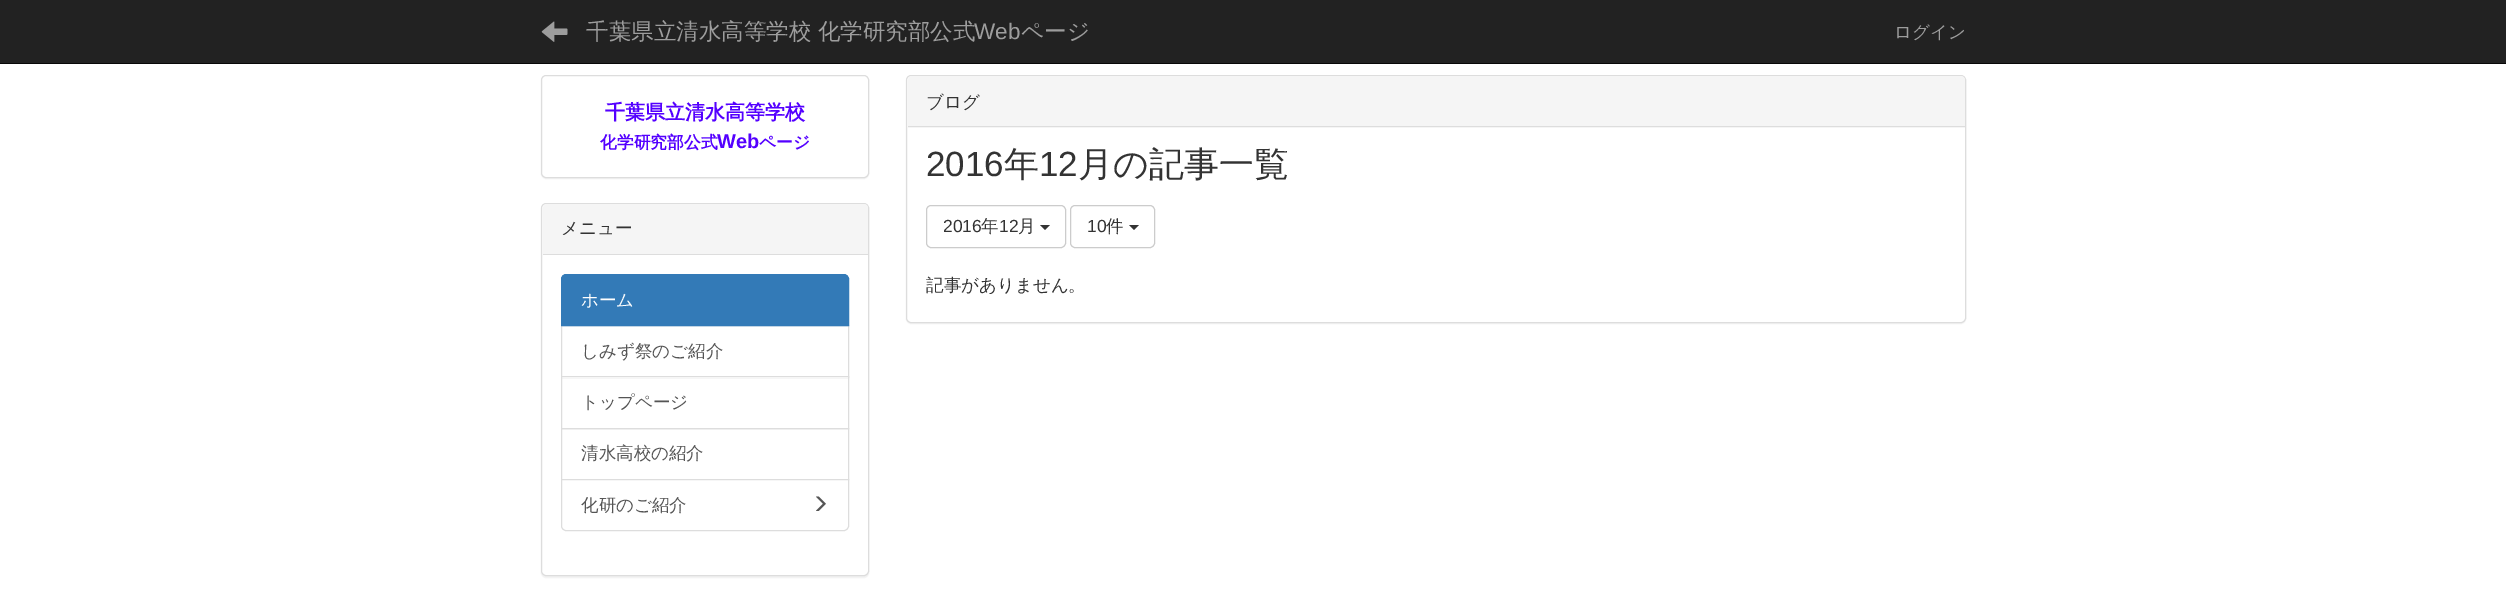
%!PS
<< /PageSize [2506 596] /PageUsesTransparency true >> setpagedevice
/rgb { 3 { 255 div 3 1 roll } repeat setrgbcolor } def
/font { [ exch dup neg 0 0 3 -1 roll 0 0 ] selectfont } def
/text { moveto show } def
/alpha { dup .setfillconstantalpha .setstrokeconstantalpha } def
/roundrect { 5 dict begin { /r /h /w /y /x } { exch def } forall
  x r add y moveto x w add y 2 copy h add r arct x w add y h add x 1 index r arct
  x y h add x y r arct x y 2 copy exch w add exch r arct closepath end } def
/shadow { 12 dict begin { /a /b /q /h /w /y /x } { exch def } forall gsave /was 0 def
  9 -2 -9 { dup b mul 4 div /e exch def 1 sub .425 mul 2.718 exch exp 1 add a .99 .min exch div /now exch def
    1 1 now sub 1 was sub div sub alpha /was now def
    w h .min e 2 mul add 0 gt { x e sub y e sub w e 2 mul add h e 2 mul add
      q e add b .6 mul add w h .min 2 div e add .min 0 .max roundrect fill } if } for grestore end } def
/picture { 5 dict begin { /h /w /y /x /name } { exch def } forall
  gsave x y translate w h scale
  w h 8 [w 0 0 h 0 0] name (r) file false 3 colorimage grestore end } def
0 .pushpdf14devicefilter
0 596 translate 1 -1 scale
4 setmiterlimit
255 255 255 rgb
0 0 2506 596 rectfill
34 34 34 rgb
0 0 2506 63 rectfill
8 8 8 rgb
0 63 2506 1 rectfill
(img_01.rgb) 541 21 27 21 picture
0 0 0 rgb
541 76 328 103 5 0.5 0.05 shadow
255 255 255 rgb
541.5 75.5 327 102 4.5 roundrect gsave fill grestore
221 221 221 rgb
stroke
0 0 0 rgb
541 204 328 374 5 0.5 0.05 shadow
255 255 255 rgb
541.5 203.5 327 372 4.5 roundrect gsave fill grestore
221 221 221 rgb
stroke
245 245 245 rgb
547 204 moveto 317 0 rlineto 2 0 4 2 4 4 rcurveto 0 47 rlineto -325 0 rlineto 0 -47 rlineto 0 -2 2 -4 4 -4 rcurveto closepath fill
221 221 221 rgb
543 254 325 1 rectfill
561.5 325.5 287 52 rectstroke
51 122 183 rgb
566 274.5 moveto 278 0 rlineto 2.5 0 4.5 2 4.5 4.5 rcurveto 0 46.5 rlineto -287 0 rlineto 0 -46.5 rlineto 0 -2.5 2 -4.5 4.5 -4.5 rcurveto closepath gsave fill grestore
stroke
255 255 255 rgb
562 377 286 1 rectfill
221 221 221 rgb
561.5 376.5 287 52 rectstroke
561.5 428.5 287 51 rectstroke
255 255 255 rgb
561.5 479.5 moveto 287 0 rlineto 0 46.5 rlineto 0 2.5 -2 4.5 -4.5 4.5 rcurveto -278 0 rlineto -2.5 0 -4.5 -2 -4.5 -4.5 rcurveto closepath gsave fill grestore
221 221 221 rgb
stroke
(img_02.rgb) 816 496 10 15 picture
0 0 0 rgb
906 76 1060 248 5 0.5 0.05 shadow
255 255 255 rgb
906.5 75.5 1059 247 4.5 roundrect gsave fill grestore
221 221 221 rgb
stroke
245 245 245 rgb
912 76 moveto 1049 0 rlineto 2 0 4 2 4 4 rcurveto 0 48 rlineto -1057 0 rlineto 0 -48 rlineto 0 -2 2 -4 4 -4 rcurveto closepath fill
221 221 221 rgb
908 126 1057 1 rectfill
204 204 204 rgb
926.5 205.5 139 42 4.5 roundrect stroke
51 51 51 rgb
1040 225 moveto 10 0 rlineto -5 5 rlineto closepath fill
204 204 204 rgb
1070.5 205.5 84 42 4.5 roundrect stroke
51 51 51 rgb
1129 225 moveto 10 0 rlineto -5 5 rlineto closepath fill
/WenQuanYiZenHei-Medium 22.5 font
157 157 157 rgb
(千葉県立清水高等学校 化学研究部公式) 586 39 text
/LiberationSans-Regular 22.5 font
(Web) 974 39 text
/WenQuanYiZenHei-Medium 22.5 font
(ページ) 1021 39 text
/WenQuanYiZenHei-Medium 17.5 font
(ログイン) 1894 38 text
/WenQuanYiZenHei-Bold 20 font
84 0 255 rgb
(千葉県立清水高等学校) 605 119 text
/WenQuanYiZenHei-Bold 16.75 font
(化学研究部公式) 600 148 text
/LiberationSans-Bold 20 font
(Web) 717 148 text
/WenQuanYiZenHei-Bold 16.75 font
(ページ) 759 148 text
/WenQuanYiZenHei-Medium 17.5 font
51 51 51 rgb
(メニュー) 561 234 text
255 255 255 rgb
(ホーム) 581 306 text
85 85 85 rgb
(しみず祭のご紹介) 581 357 text
(トップページ) 581 408 text
(清水高校の紹介) 581 459 text
(化研のご紹介) 581 511 text
51 51 51 rgb
(ブログ) 926 108 text
/LiberationSans-Regular 35 font
(2016) 926 176 text
/WenQuanYiZenHei-Medium 35 font
(年) 1004 176 text
/LiberationSans-Regular 35 font
(12) 1039 176 text
/WenQuanYiZenHei-Medium 35 font
(月の記事一覧) 1078 176 text
/LiberationSans-Regular 17.5 font
(2016) 943 232 text
/WenQuanYiZenHei-Medium 17.5 font
(年) 981 232 text
/LiberationSans-Regular 17.5 font
(12) 999 232 text
/WenQuanYiZenHei-Medium 17.5 font
(月) 1018 232 text
/LiberationSans-Regular 17.5 font
(10) 1087 232 text
/WenQuanYiZenHei-Medium 17.5 font
(件) 1106 232 text
(記事がありません。) 926 291 text
.poppdf14devicefilter showpage
